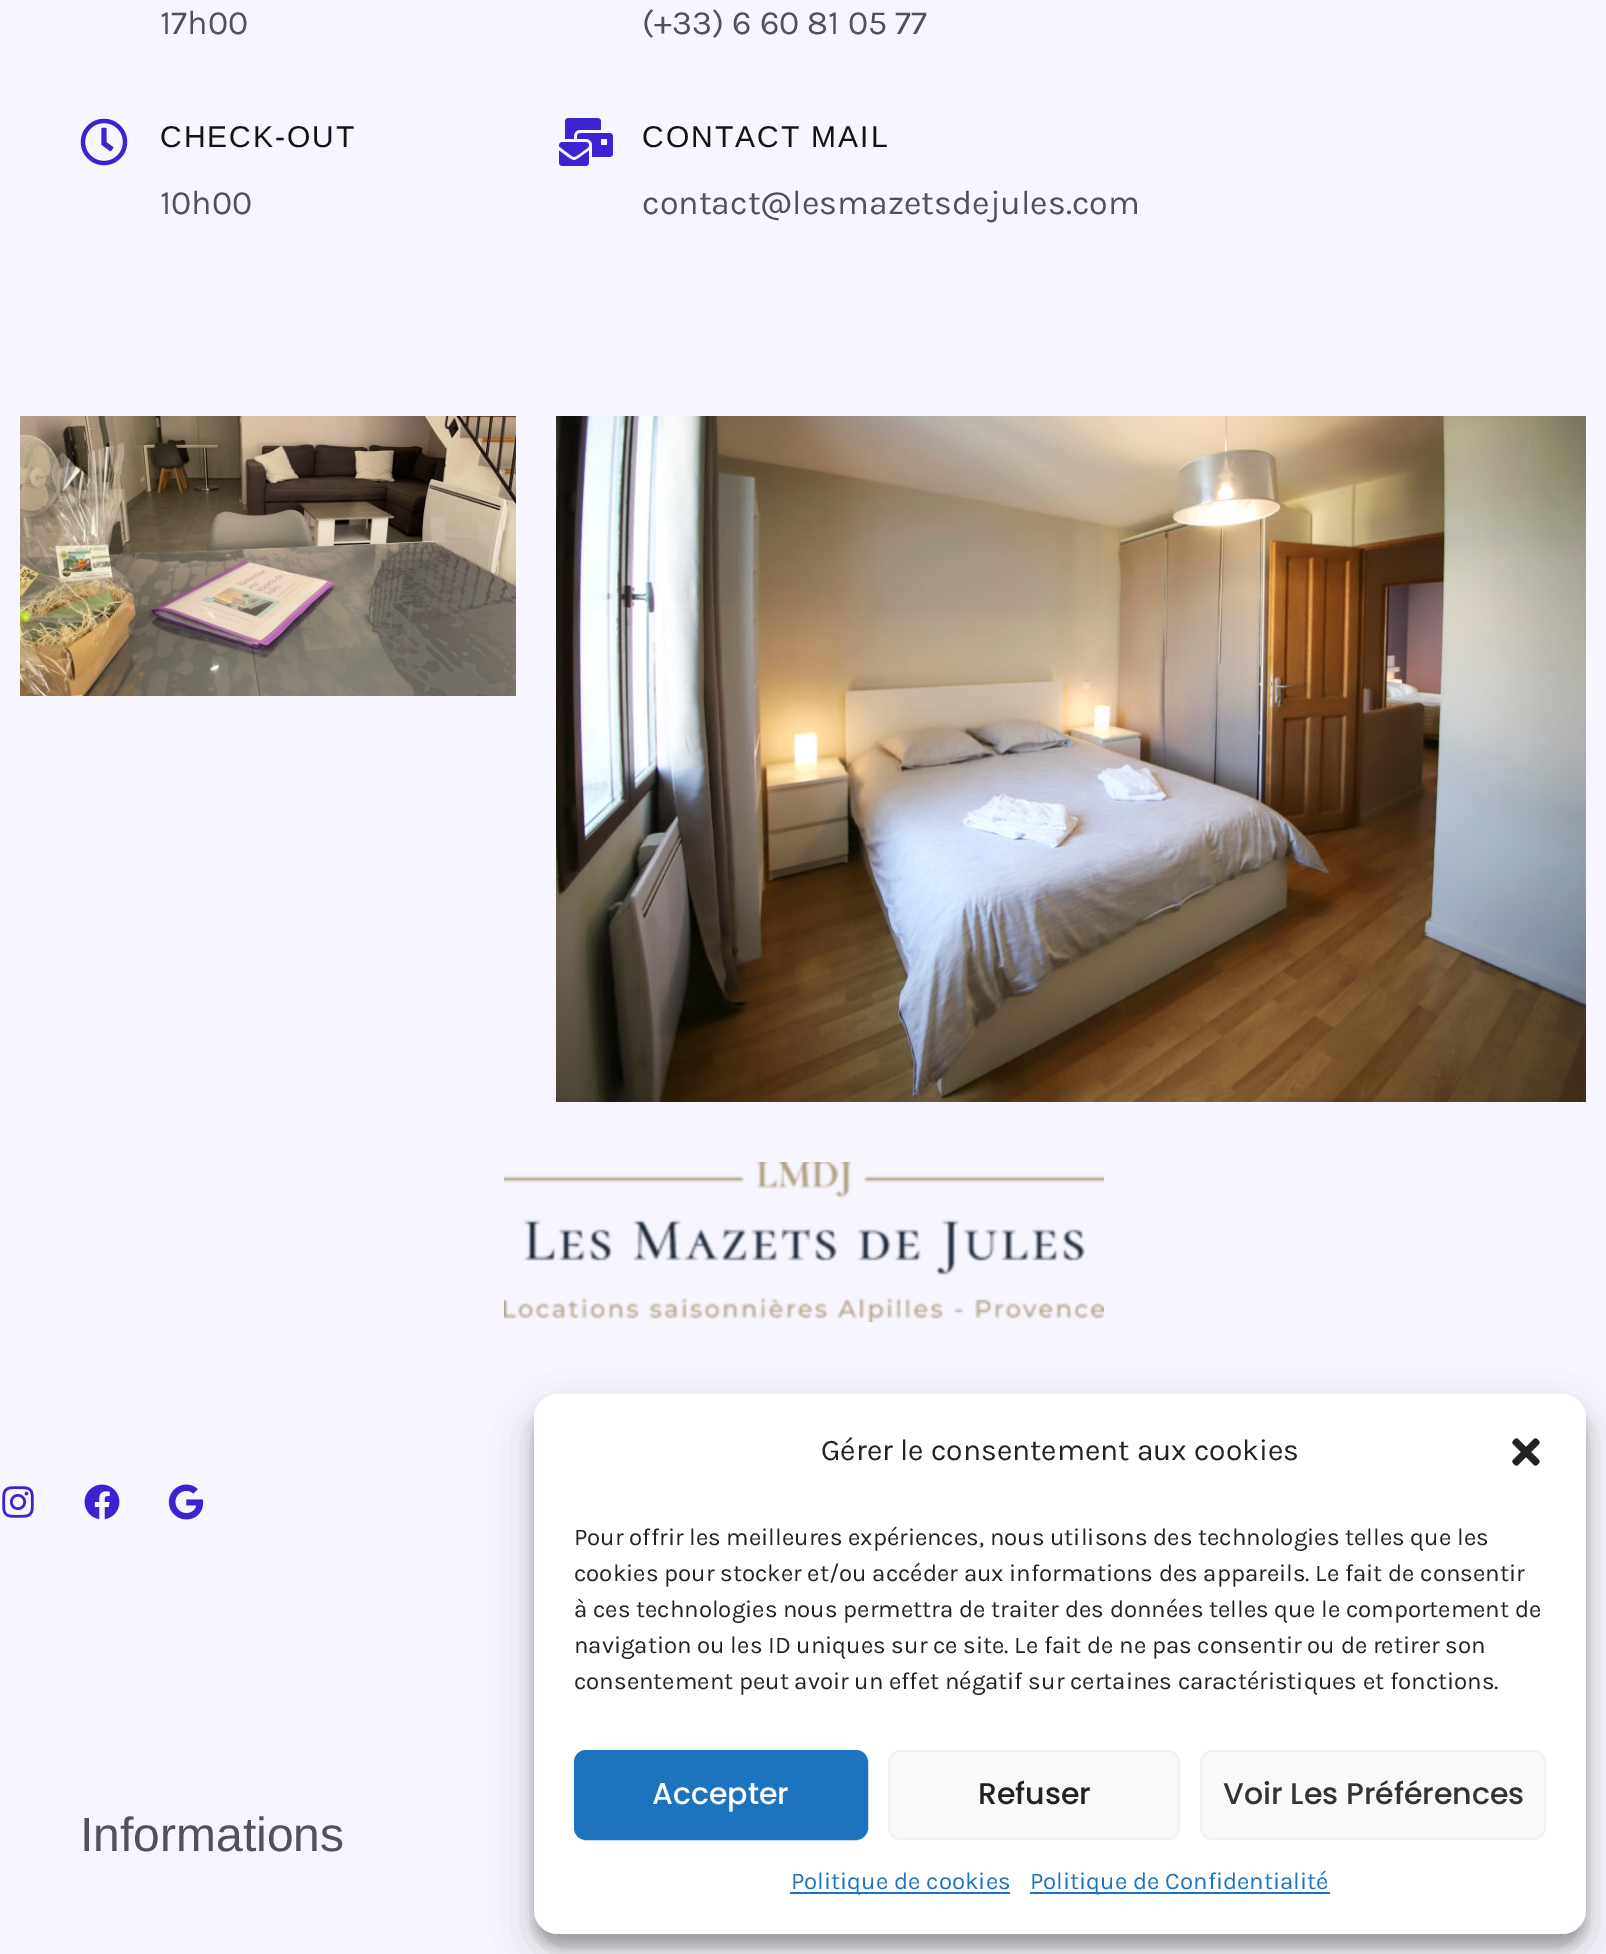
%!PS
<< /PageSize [1606 1954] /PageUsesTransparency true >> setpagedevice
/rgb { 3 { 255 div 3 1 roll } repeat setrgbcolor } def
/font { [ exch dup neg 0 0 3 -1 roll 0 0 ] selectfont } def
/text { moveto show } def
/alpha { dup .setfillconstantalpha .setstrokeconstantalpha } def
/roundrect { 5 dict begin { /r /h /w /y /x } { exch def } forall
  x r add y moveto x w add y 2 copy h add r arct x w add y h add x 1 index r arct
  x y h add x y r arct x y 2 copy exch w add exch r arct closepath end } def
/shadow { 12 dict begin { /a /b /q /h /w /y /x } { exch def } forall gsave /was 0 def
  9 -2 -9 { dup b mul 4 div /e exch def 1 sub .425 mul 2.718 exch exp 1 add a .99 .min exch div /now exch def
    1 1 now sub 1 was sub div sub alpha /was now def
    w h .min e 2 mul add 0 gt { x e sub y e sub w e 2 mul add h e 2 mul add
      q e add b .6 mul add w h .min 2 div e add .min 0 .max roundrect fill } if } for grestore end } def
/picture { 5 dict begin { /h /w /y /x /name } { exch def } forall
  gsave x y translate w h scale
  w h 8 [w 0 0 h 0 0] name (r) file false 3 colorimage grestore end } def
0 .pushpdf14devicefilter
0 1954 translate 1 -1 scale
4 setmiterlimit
247 246 254 rgb
0 0 1606 1954 rectfill
(img_01.rgb) 80 118 48 48 picture
(img_02.rgb) 559 118 54 48 picture
(img_03.rgb) 20 416 496 280 picture
(img_04.rgb) 556 416 1030 686 picture
(img_05.rgb) 504 1162 600 160 picture
(img_06.rgb) 2 1486 32 32 picture
(img_07.rgb) 84 1484 36 36 picture
(img_08.rgb) 168 1484 36 36 picture
0 0 0 rgb
534 1406 1052 540 24 6 0.23 shadow
534 1414 1052 540 24 20 0.19 shadow
255 255 255 rgb
534 1394 1052 540 24 roundrect fill
(img_09.rgb) 1512 1438 28 28 picture
30 115 190 rgb
575 1751 292 88 11 roundrect gsave fill grestore
2 setlinewidth
stroke
249 249 249 rgb
889 1751 290 88 11 roundrect gsave fill grestore
242 242 242 rgb
stroke
249 249 249 rgb
1201 1751 344 88 11 roundrect gsave fill grestore
242 242 242 rgb
stroke
30 115 190 rgb
790 1892 220 2 rectfill
1030 1892 300 2 rectfill
/Karla-Regular 34 font
82 80 94 rgb
(17h00) 160 34 text
/LiberationSans-Regular 30 font
19 19 22 rgb
160 147 moveto 2 0 (CHECK-OUT) ashow
/Karla-Regular 34 font
82 80 94 rgb
(10h00) 160 214 text
(\(+33\) 6 60 81 05 77) 642 34 text
/LiberationSans-Regular 30 font
19 19 22 rgb
642 147 moveto 2 0 (CONTACT MAIL) ashow
/Karla-Regular 34 font
82 80 94 rgb
(contact@lesmazetsdejules.com) 642 214 text
/LiberationSans-Regular 48 font
(Informations) 80 1851 text
/Karla-Regular 30 font
34 34 34 rgb
(Gérer le consentement aux cookies) 821 1460 text
/Karla-Regular 24 font
(Pour offrir les meilleures expériences, nous utilisons des technologies telles que les) 574 1545 text
(cookies pour stocker et/ou accéder aux informations des appareils. Le fait de consentir) 574 1581 text
(à ces technologies nous permettra de traiter des données telles que le comportement de) 574 1617 text
(navigation ou les ID uniques sur ce site. Le fait de ne pas consentir ou de retirer son) 574 1653 text
(consentement peut avoir un effet négatif sur certaines caractéristiques et fonctions.) 574 1689 text
/Poppins-Medium 30 font
255 255 255 rgb
(Accepter) 652 1804 text
34 34 34 rgb
(Refuser) 978 1804 text
51 51 51 rgb
(Voir Les Préférences) 1223 1804 text
/Karla-Regular 24 font
30 115 190 rgb
(Politique de cookies) 791 1889 text
(Politique de Confidentialité) 1030 1889 text
.poppdf14devicefilter showpage
